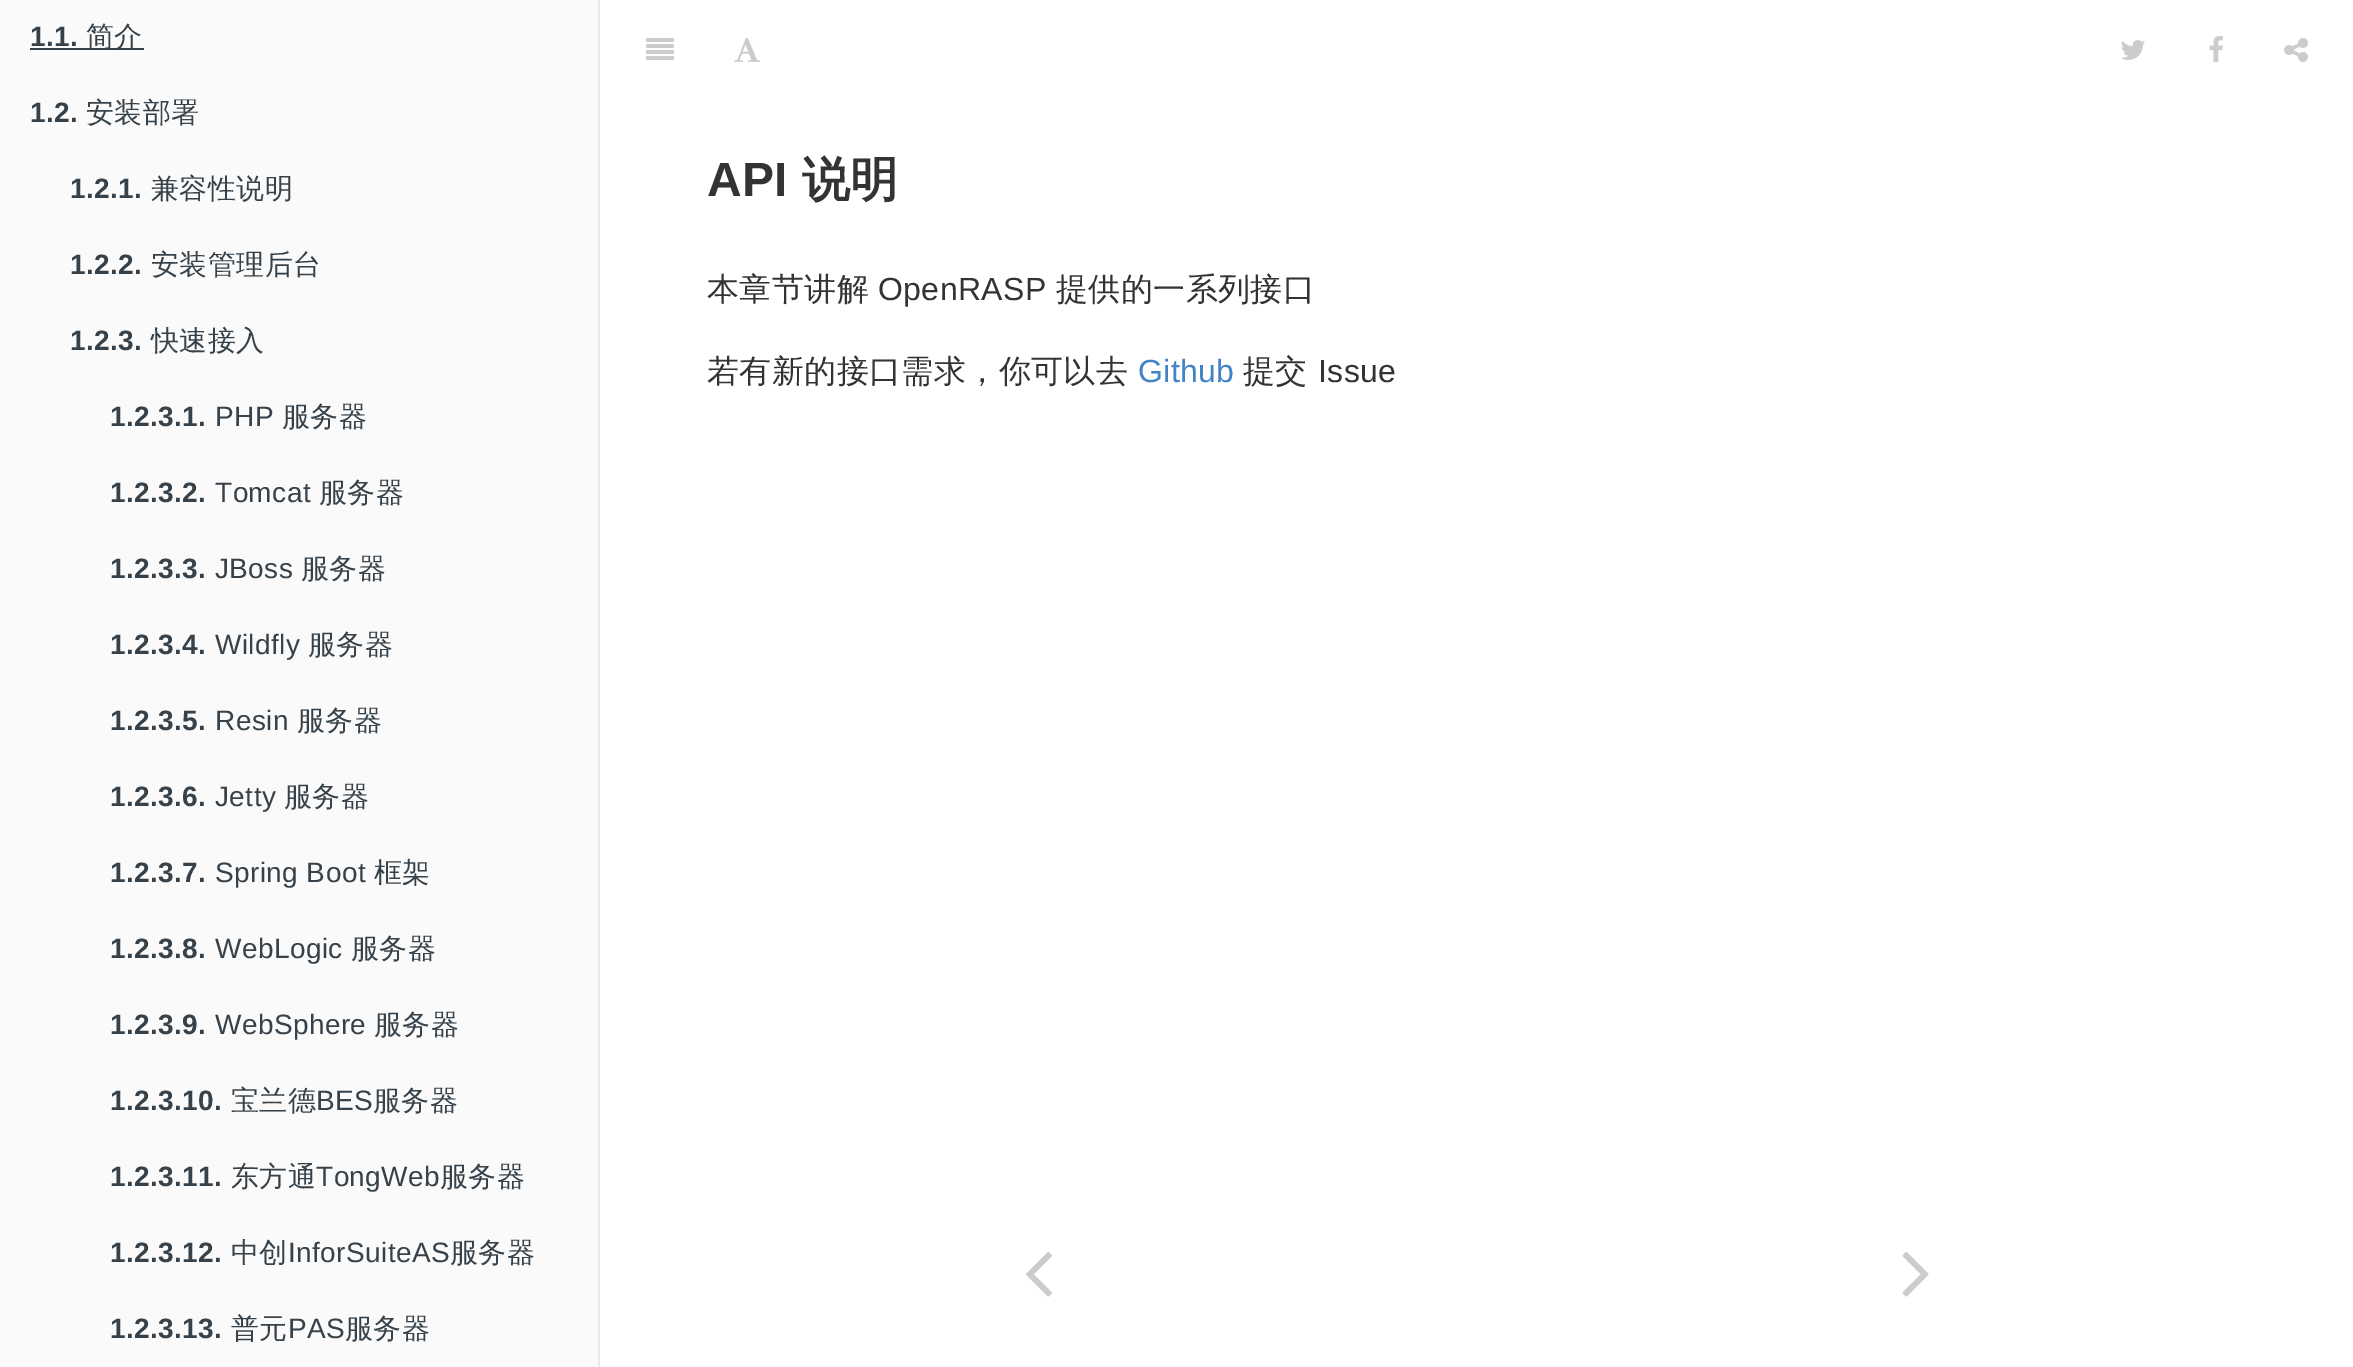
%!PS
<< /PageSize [2353 1367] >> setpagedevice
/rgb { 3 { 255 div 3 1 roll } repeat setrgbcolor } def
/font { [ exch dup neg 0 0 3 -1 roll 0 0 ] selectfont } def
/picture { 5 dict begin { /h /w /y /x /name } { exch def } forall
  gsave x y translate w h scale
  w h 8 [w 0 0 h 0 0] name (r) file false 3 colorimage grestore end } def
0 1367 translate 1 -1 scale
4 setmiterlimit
255 255 255 rgb
0 0 2353 1367 rectfill
250 250 250 rgb
0 0 598 1367 rectfill
233 233 233 rgb
598 0 2 1367 rectfill
54 65 73 rgb
30 48 114 2 rectfill
(img_01.rgb) 646 38 28 22 picture
(img_02.rgb) 734 38 26 24 picture
(img_03.rgb) 2121 40 24 20 picture
(img_04.rgb) 2209 36 14 26 picture
(img_05.rgb) 2284 38 24 24 picture
(img_06.rgb) 1026 1252 26 45 picture
(img_07.rgb) 1902 1252 27 45 picture
/LiberationSans-Bold 28 font
30 46 moveto 0.4 0 (1.1.) ashow
/WenQuanYiZenHei-Medium 28 font
86 46 moveto 0.4 0 (简介) ashow
/LiberationSans-Bold 28 font
30 122 moveto 0.4 0 (1.2.) ashow
/WenQuanYiZenHei-Medium 28 font
86 122 moveto 0.4 0 (安装部署) ashow
/LiberationSans-Bold 28 font
70 198 moveto 0.4 0 (1.2.1.) ashow
/WenQuanYiZenHei-Medium 28 font
151 198 moveto 0.4 0 (兼容性说明) ashow
/LiberationSans-Bold 28 font
70 274 moveto 0.4 0 (1.2.2.) ashow
/WenQuanYiZenHei-Medium 28 font
151 274 moveto 0.4 0 (安装管理后台) ashow
/LiberationSans-Bold 28 font
70 350 moveto 0.4 0 (1.2.3.) ashow
/WenQuanYiZenHei-Medium 28 font
151 350 moveto 0.4 0 (快速接入) ashow
/LiberationSans-Bold 28 font
110 426 moveto 0.4 0 (1.2.3.1.) ashow
/LiberationSans-Regular 28 font
215 426 moveto 0.4 0 (PHP) ashow
/WenQuanYiZenHei-Medium 28 font
282 426 moveto 0.4 0 (服务器) ashow
/LiberationSans-Bold 28 font
110 502 moveto 0.4 0 (1.2.3.2.) ashow
/LiberationSans-Regular 28 font
215 502 moveto 0.4 0 (Tomcat) ashow
/WenQuanYiZenHei-Medium 28 font
319 502 moveto 0.4 0 (服务器) ashow
/LiberationSans-Bold 28 font
110 578 moveto 0.4 0 (1.2.3.3.) ashow
/LiberationSans-Regular 28 font
215 578 moveto 0.4 0 (JBoss) ashow
/WenQuanYiZenHei-Medium 28 font
301 578 moveto 0.4 0 (服务器) ashow
/LiberationSans-Bold 28 font
110 654 moveto 0.4 0 (1.2.3.4.) ashow
/LiberationSans-Regular 28 font
215 654 moveto 0.4 0 (Wildfly) ashow
/WenQuanYiZenHei-Medium 28 font
308 654 moveto 0.4 0 (服务器) ashow
/LiberationSans-Bold 28 font
110 730 moveto 0.4 0 (1.2.3.5.) ashow
/LiberationSans-Regular 28 font
215 730 moveto 0.4 0 (Resin) ashow
/WenQuanYiZenHei-Medium 28 font
297 730 moveto 0.4 0 (服务器) ashow
/LiberationSans-Bold 28 font
110 806 moveto 0.4 0 (1.2.3.6.) ashow
/LiberationSans-Regular 28 font
215 806 moveto 0.4 0 (Jetty) ashow
/WenQuanYiZenHei-Medium 28 font
284 806 moveto 0.4 0 (服务器) ashow
/LiberationSans-Bold 28 font
110 882 moveto 0.4 0 (1.2.3.7.) ashow
/LiberationSans-Regular 28 font
215 882 moveto 0.4 0 (Spring Boot) ashow
/WenQuanYiZenHei-Medium 28 font
374 882 moveto 0.4 0 (框架) ashow
/LiberationSans-Bold 28 font
110 958 moveto 0.4 0 (1.2.3.8.) ashow
/LiberationSans-Regular 28 font
215 958 moveto 0.4 0 (WebLogic) ashow
/WenQuanYiZenHei-Medium 28 font
351 958 moveto 0.4 0 (服务器) ashow
/LiberationSans-Bold 28 font
110 1034 moveto 0.4 0 (1.2.3.9.) ashow
/LiberationSans-Regular 28 font
215 1034 moveto 0.4 0 (WebSphere) ashow
/WenQuanYiZenHei-Medium 28 font
374 1034 moveto 0.4 0 (服务器) ashow
/LiberationSans-Bold 28 font
110 1110 moveto 0.4 0 (1.2.3.10.) ashow
/WenQuanYiZenHei-Medium 28 font
231 1110 moveto 0.4 0 (宝兰德) ashow
/LiberationSans-Regular 28 font
316 1110 moveto 0.4 0 (BES) ashow
/WenQuanYiZenHei-Medium 28 font
373 1110 moveto 0.4 0 (服务器) ashow
/LiberationSans-Bold 28 font
110 1186 moveto 0.4 0 (1.2.3.11.) ashow
/WenQuanYiZenHei-Medium 28 font
231 1186 moveto 0.4 0 (东方通) ashow
/LiberationSans-Regular 28 font
316 1186 moveto 0.4 0 (TongWeb) ashow
/WenQuanYiZenHei-Medium 28 font
440 1186 moveto 0.4 0 (服务器) ashow
/LiberationSans-Bold 28 font
110 1262 moveto 0.4 0 (1.2.3.12.) ashow
/WenQuanYiZenHei-Medium 28 font
231 1262 moveto 0.4 0 (中创) ashow
/LiberationSans-Regular 28 font
288 1262 moveto 0.4 0 (InforSuiteAS) ashow
/WenQuanYiZenHei-Medium 28 font
450 1262 moveto 0.4 0 (服务器) ashow
/LiberationSans-Bold 28 font
110 1338 moveto 0.4 0 (1.2.3.13.) ashow
/WenQuanYiZenHei-Medium 28 font
231 1338 moveto 0.4 0 (普元) ashow
/LiberationSans-Regular 28 font
288 1338 moveto 0.4 0 (PAS) ashow
/WenQuanYiZenHei-Medium 28 font
345 1338 moveto 0.4 0 (服务器) ashow
/LiberationSans-Bold 48 font
51 51 51 rgb
707 196 moveto 0.4 0 (API) ashow
/WenQuanYiZenHei-Bold 48 font
802 196 moveto 0.4 0 (说明) ashow
/WenQuanYiZenHei-Medium 32 font
707 300 moveto 0.4 0 (本章节讲解) ashow
/LiberationSans-Regular 32 font
878 300 moveto 0.4 0 (OpenRASP) ashow
/WenQuanYiZenHei-Medium 32 font
1056 300 moveto 0.4 0 (提供的一系列接口) ashow
707 382 moveto 0.4 0 (若有新的接口需求，你可以去) ashow
/LiberationSans-Regular 32 font
65 131 196 rgb
1138 382 moveto 0.4 0 (Github) ashow
/WenQuanYiZenHei-Medium 32 font
51 51 51 rgb
1243 382 moveto 0.4 0 (提交) ashow
/LiberationSans-Regular 32 font
1318 382 moveto 0.4 0 (Issue) ashow
showpage
